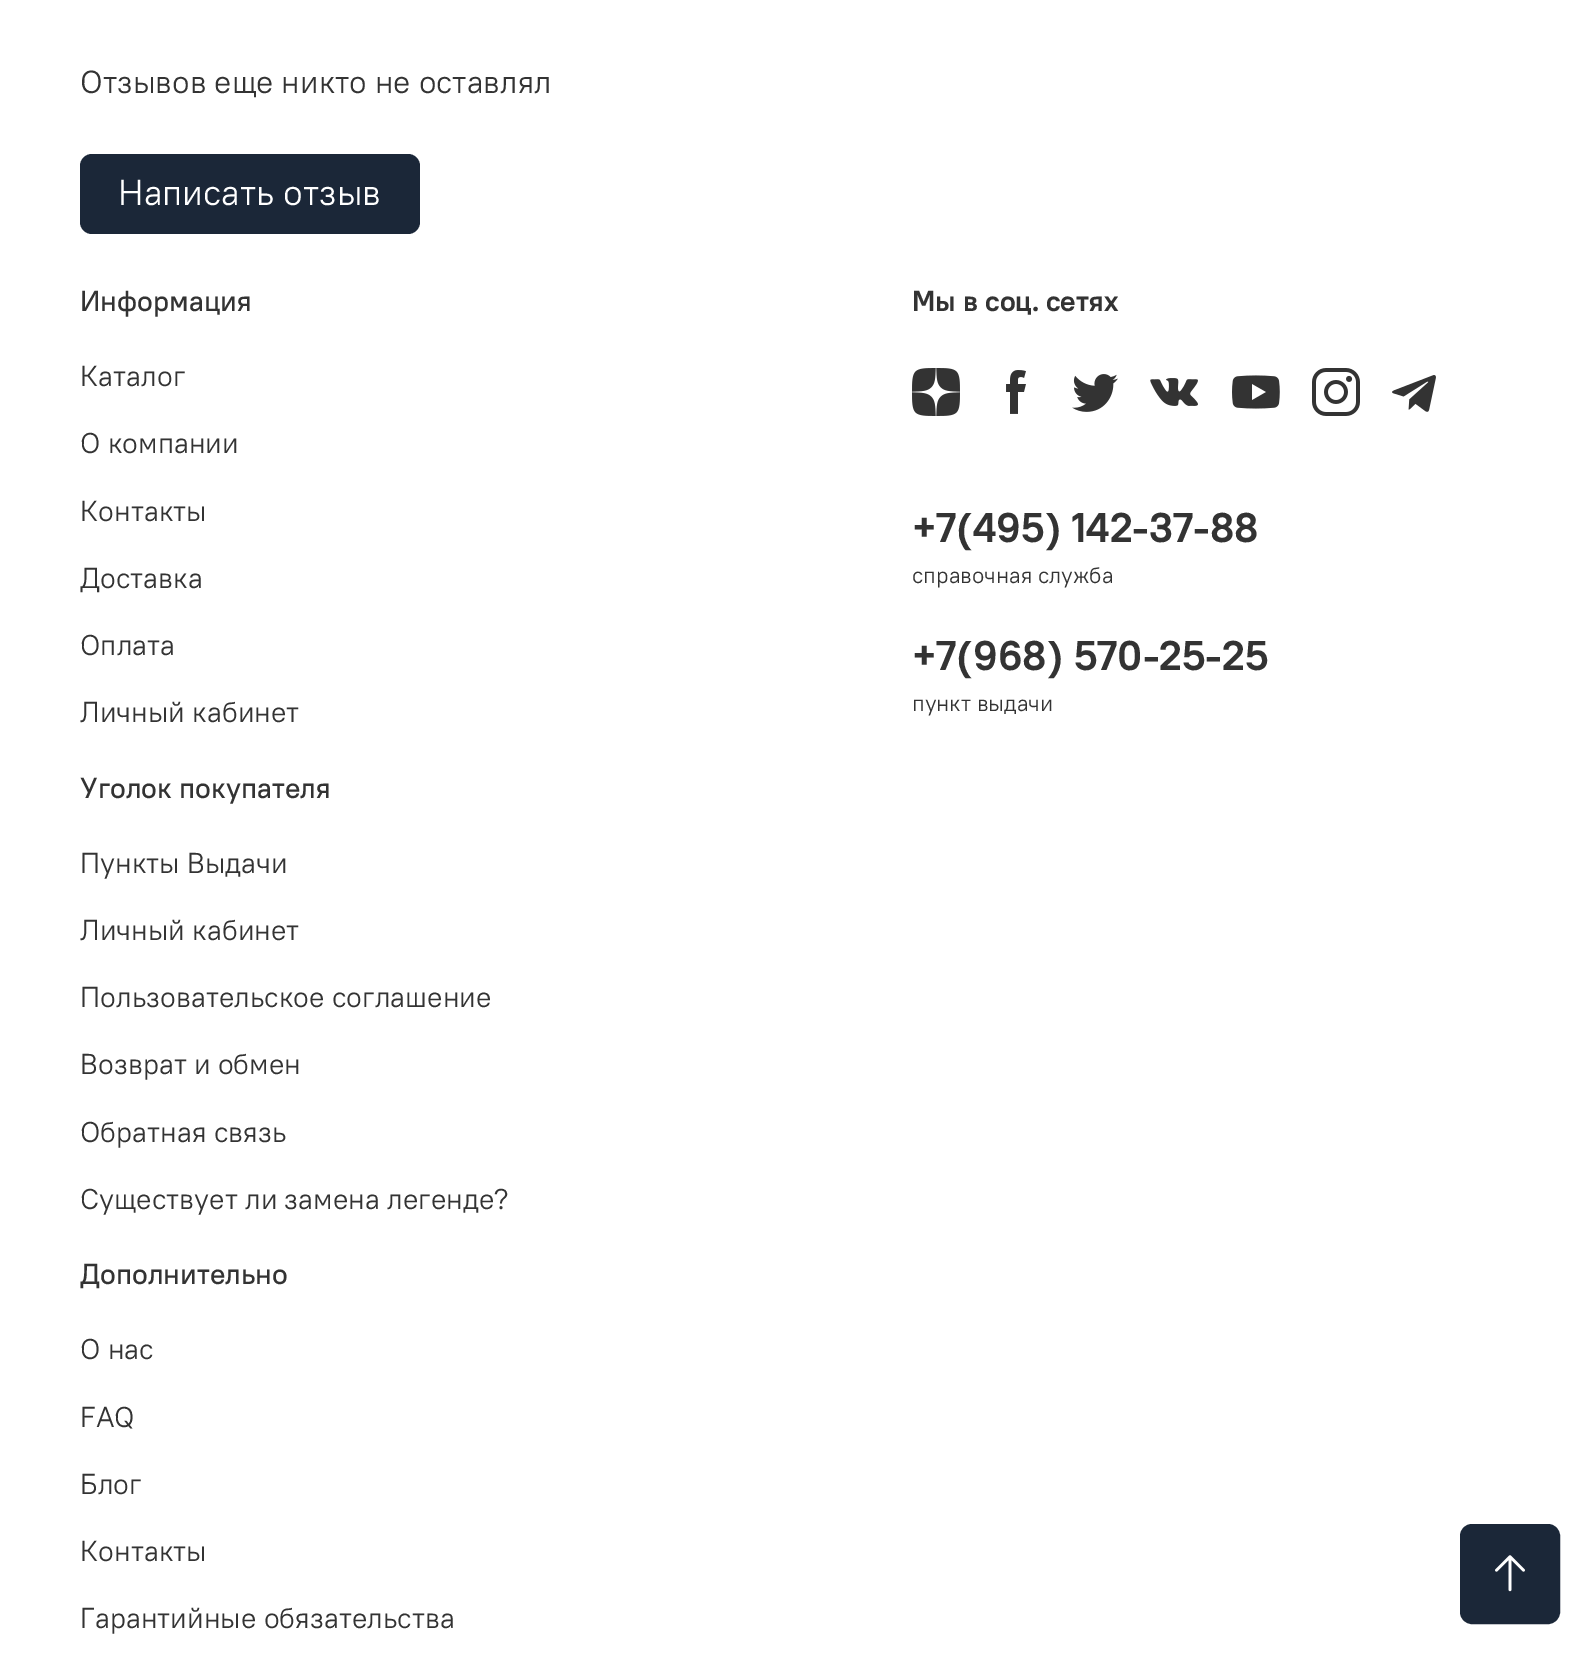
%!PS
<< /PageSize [1592 1655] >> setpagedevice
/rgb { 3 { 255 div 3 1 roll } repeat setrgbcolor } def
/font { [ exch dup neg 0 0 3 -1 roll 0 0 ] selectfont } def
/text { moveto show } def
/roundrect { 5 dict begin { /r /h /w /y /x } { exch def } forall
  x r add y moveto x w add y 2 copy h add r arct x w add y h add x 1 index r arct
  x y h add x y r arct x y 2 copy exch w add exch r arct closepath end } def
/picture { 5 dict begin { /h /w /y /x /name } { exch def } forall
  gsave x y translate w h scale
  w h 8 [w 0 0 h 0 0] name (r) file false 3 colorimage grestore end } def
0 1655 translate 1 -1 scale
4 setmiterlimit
255 255 255 rgb
0 0 1592 1655 rectfill
27 39 56 rgb
80 154 340 80 12 roundrect fill
(img_01.rgb) 912 368 48 48 picture
(img_02.rgb) 1006 370 20 44 picture
(img_03.rgb) 1072 374 46 38 picture
(img_04.rgb) 1150 378 48 28 picture
(img_05.rgb) 1232 375 48 34 picture
(img_06.rgb) 1312 368 48 48 picture
(img_07.rgb) 1392 375 44 37 picture
1461 1525 98 98 11 roundrect gsave fill grestore
2 setlinewidth
stroke
(img_08.rgb) 1495 1555 30 37 picture
/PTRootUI-Regular 32 font
51 51 51 rgb
(Отзывов еще никто не оставлял) 80 93 text
/PTRootUI-Regular 36 font
255 255 255 rgb
(Написать отзыв) 118 205 text
/PTRootUI-Medium 28.75 font
51 51 51 rgb
(Информация) 80 311 text
/PTRootUI-Regular 28.75 font
(Каталог) 80 386 text
(О компании) 80 453 text
(Контакты) 80 521 text
(Доставка) 80 588 text
(Оплата) 80 655 text
(Личный кабинет) 80 722 text
/PTRootUI-Medium 28.75 font
(Уголок покупателя) 80 798 text
/PTRootUI-Regular 28.75 font
(Пункты Выдачи) 80 873 text
(Личный кабинет) 80 940 text
(Пользовательское соглашение) 80 1007 text
(Возврат и обмен) 80 1074 text
(Обратная связь) 80 1142 text
(Существует ли замена легенде?) 80 1209 text
/PTRootUI-Medium 28.75 font
(Дополнительно) 80 1284 text
/PTRootUI-Regular 28.75 font
(О нас) 80 1359 text
(FAQ) 80 1427 text
(Блог) 80 1494 text
(Контакты) 80 1561 text
(Гарантийные обязательства) 80 1628 text
/PTRootUI-Bold 28.75 font
(Мы в соц. сетях) 912 311 text
/PTRootUI-Bold 41.5 font
(+7\(495\) 142-37-88) 912 542 text
/PTRootUI-Regular 22.5 font
(справочная служба) 912 583 text
/PTRootUI-Bold 41.5 font
(+7\(968\) 570-25-25) 912 670 text
/PTRootUI-Regular 22.5 font
(пункт выдачи) 912 711 text
showpage
